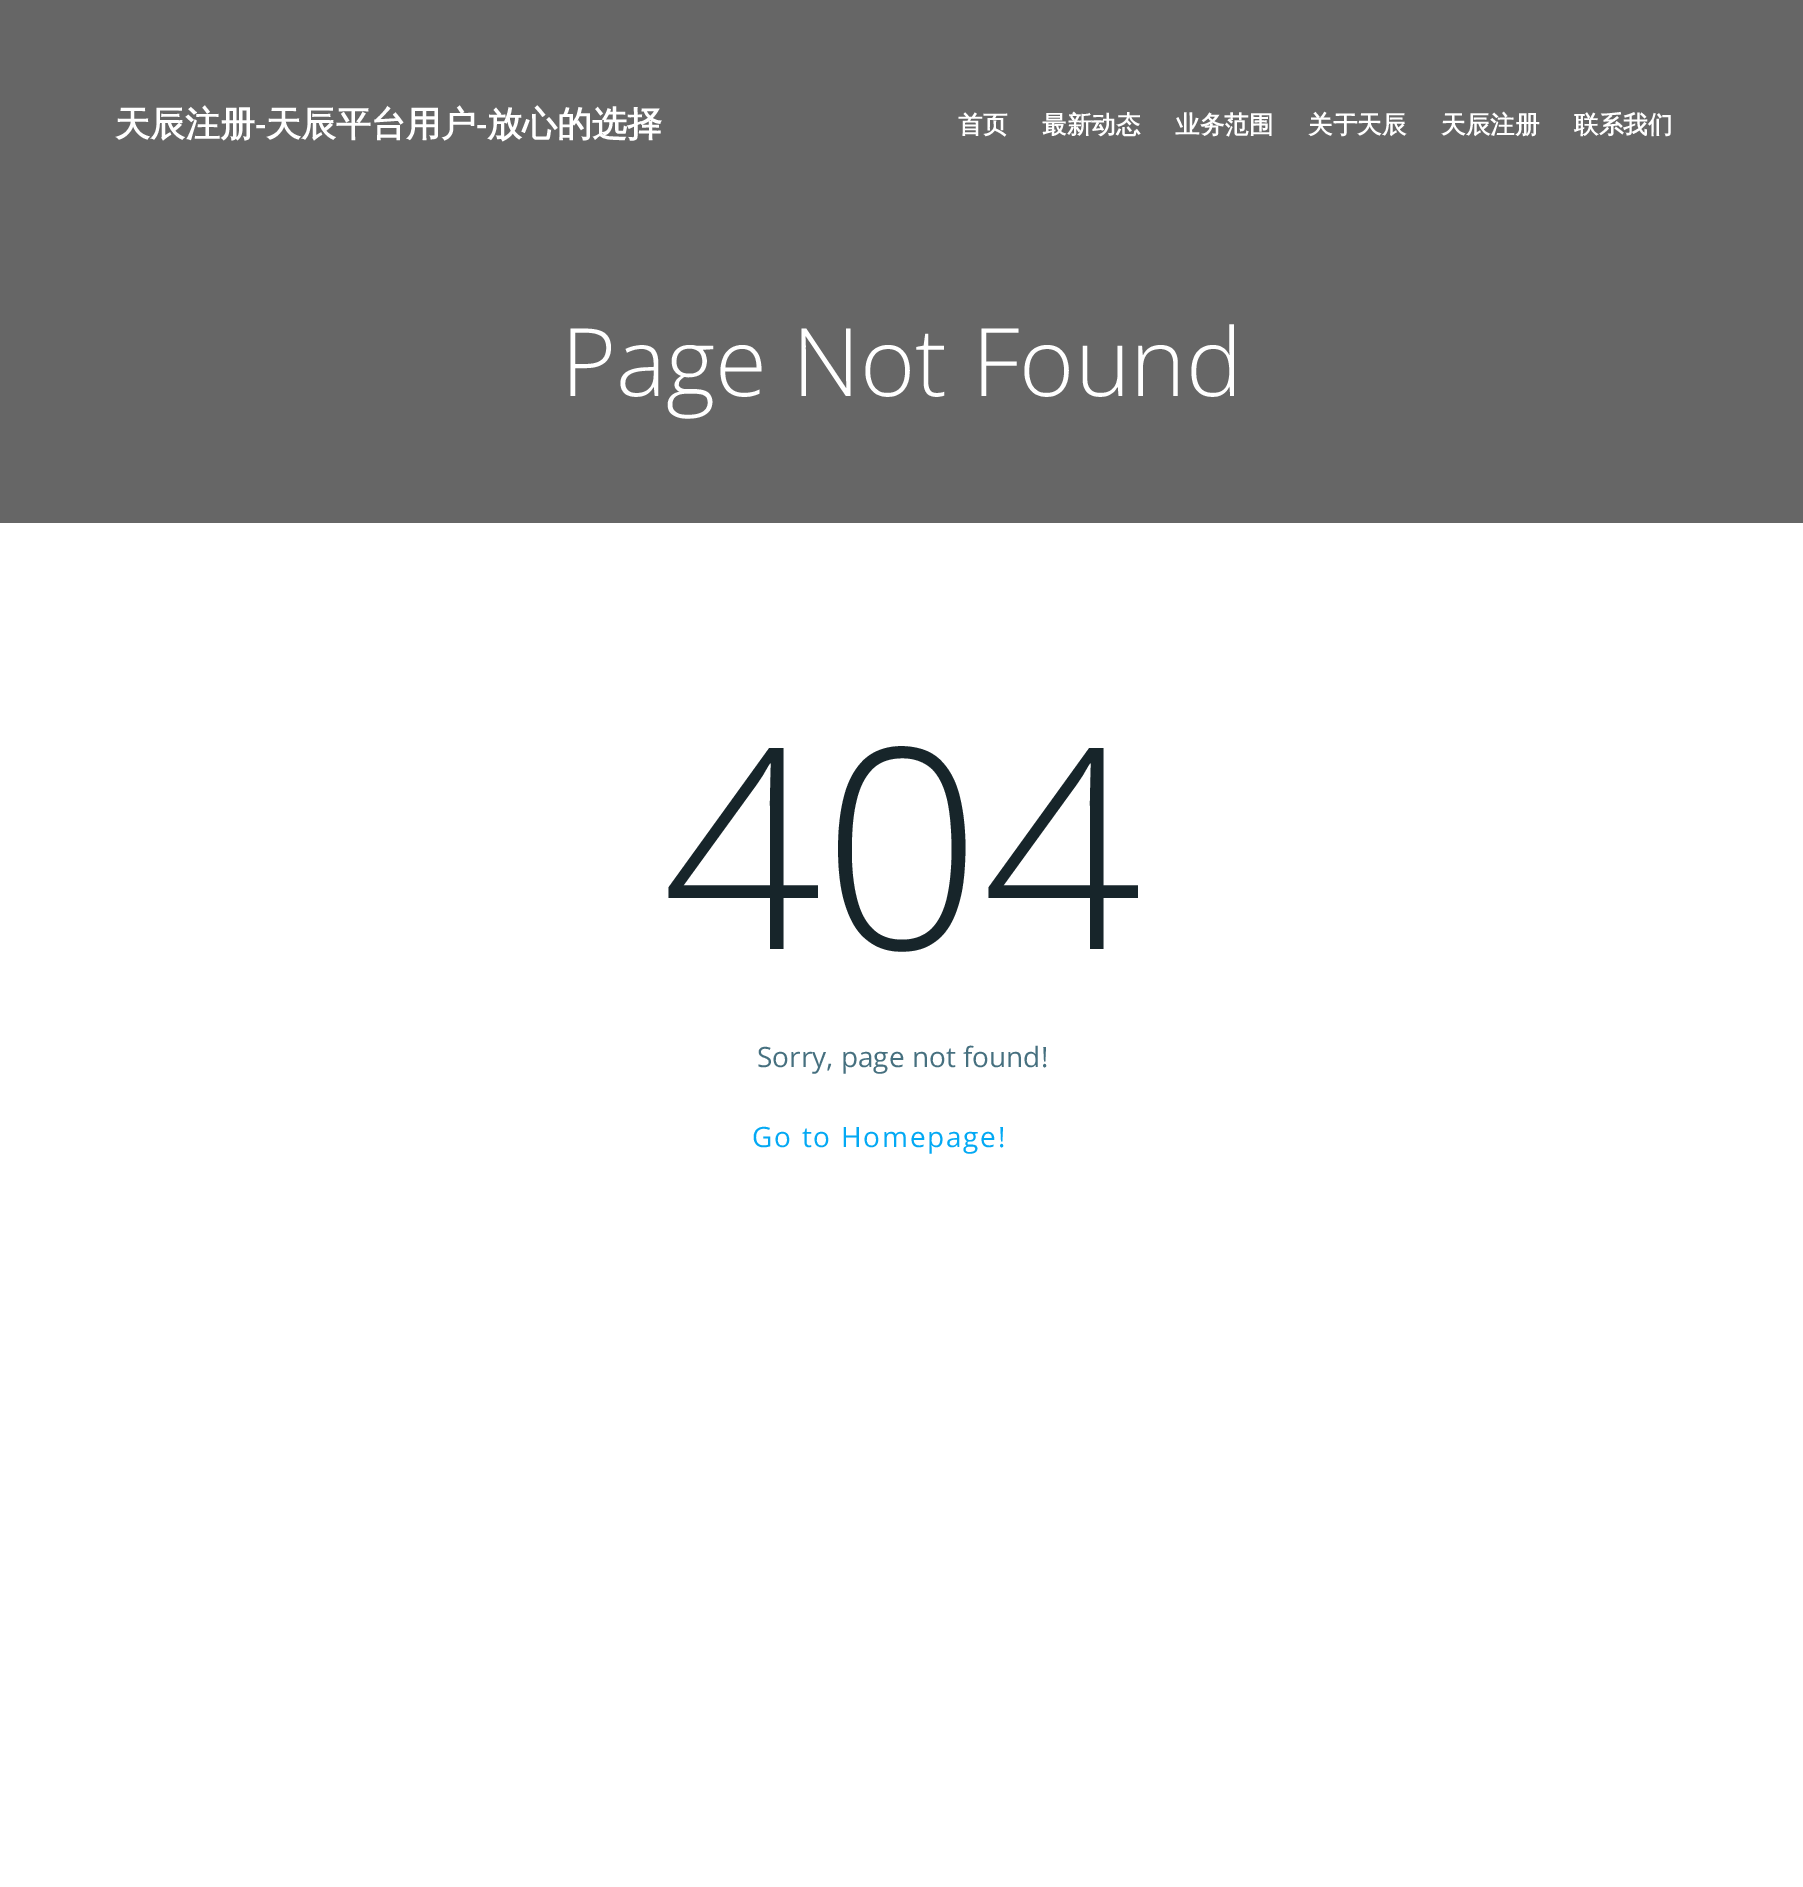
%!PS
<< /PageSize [1803 1887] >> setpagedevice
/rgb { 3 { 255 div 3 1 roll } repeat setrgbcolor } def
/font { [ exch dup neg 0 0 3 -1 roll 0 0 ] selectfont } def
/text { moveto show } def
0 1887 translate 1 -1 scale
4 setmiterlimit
255 255 255 rgb
0 0 1803 1887 rectfill
102 102 102 rgb
0 0 1803 523 rectfill
/WenQuanYiZenHei-Bold 35 font
255 255 255 rgb
(天辰注册) 115 136 text
/OpenSans-SemiBold 35 font
(-) 255 136 text
/WenQuanYiZenHei-Bold 35 font
(天辰平台用户) 266 136 text
/OpenSans-SemiBold 35 font
(-) 476 136 text
/WenQuanYiZenHei-Bold 35 font
(放心的选择) 487 136 text
/WenQuanYiZenHei-Bold 24.5 font
(首页) 958 133 text
(最新动态) 1042 133 text
(业务范围) 1175 133 text
(关于天辰) 1308 133 text
(天辰注册) 1441 133 text
(联系我们) 1574 133 text
/OpenSans-Light 94.5 font
(Page Not Found) 561 396 text
/OpenSans-Light 280 font
23 37 42 rgb
(404) 662 949 text
/OpenSans-Regular 28 font
70 112 127 rgb
(Sorry, page not found!) 757 1067 text
3 169 244 rgb
752 1147 moveto 1.75 0 (Go to Homepage!) ashow
showpage
